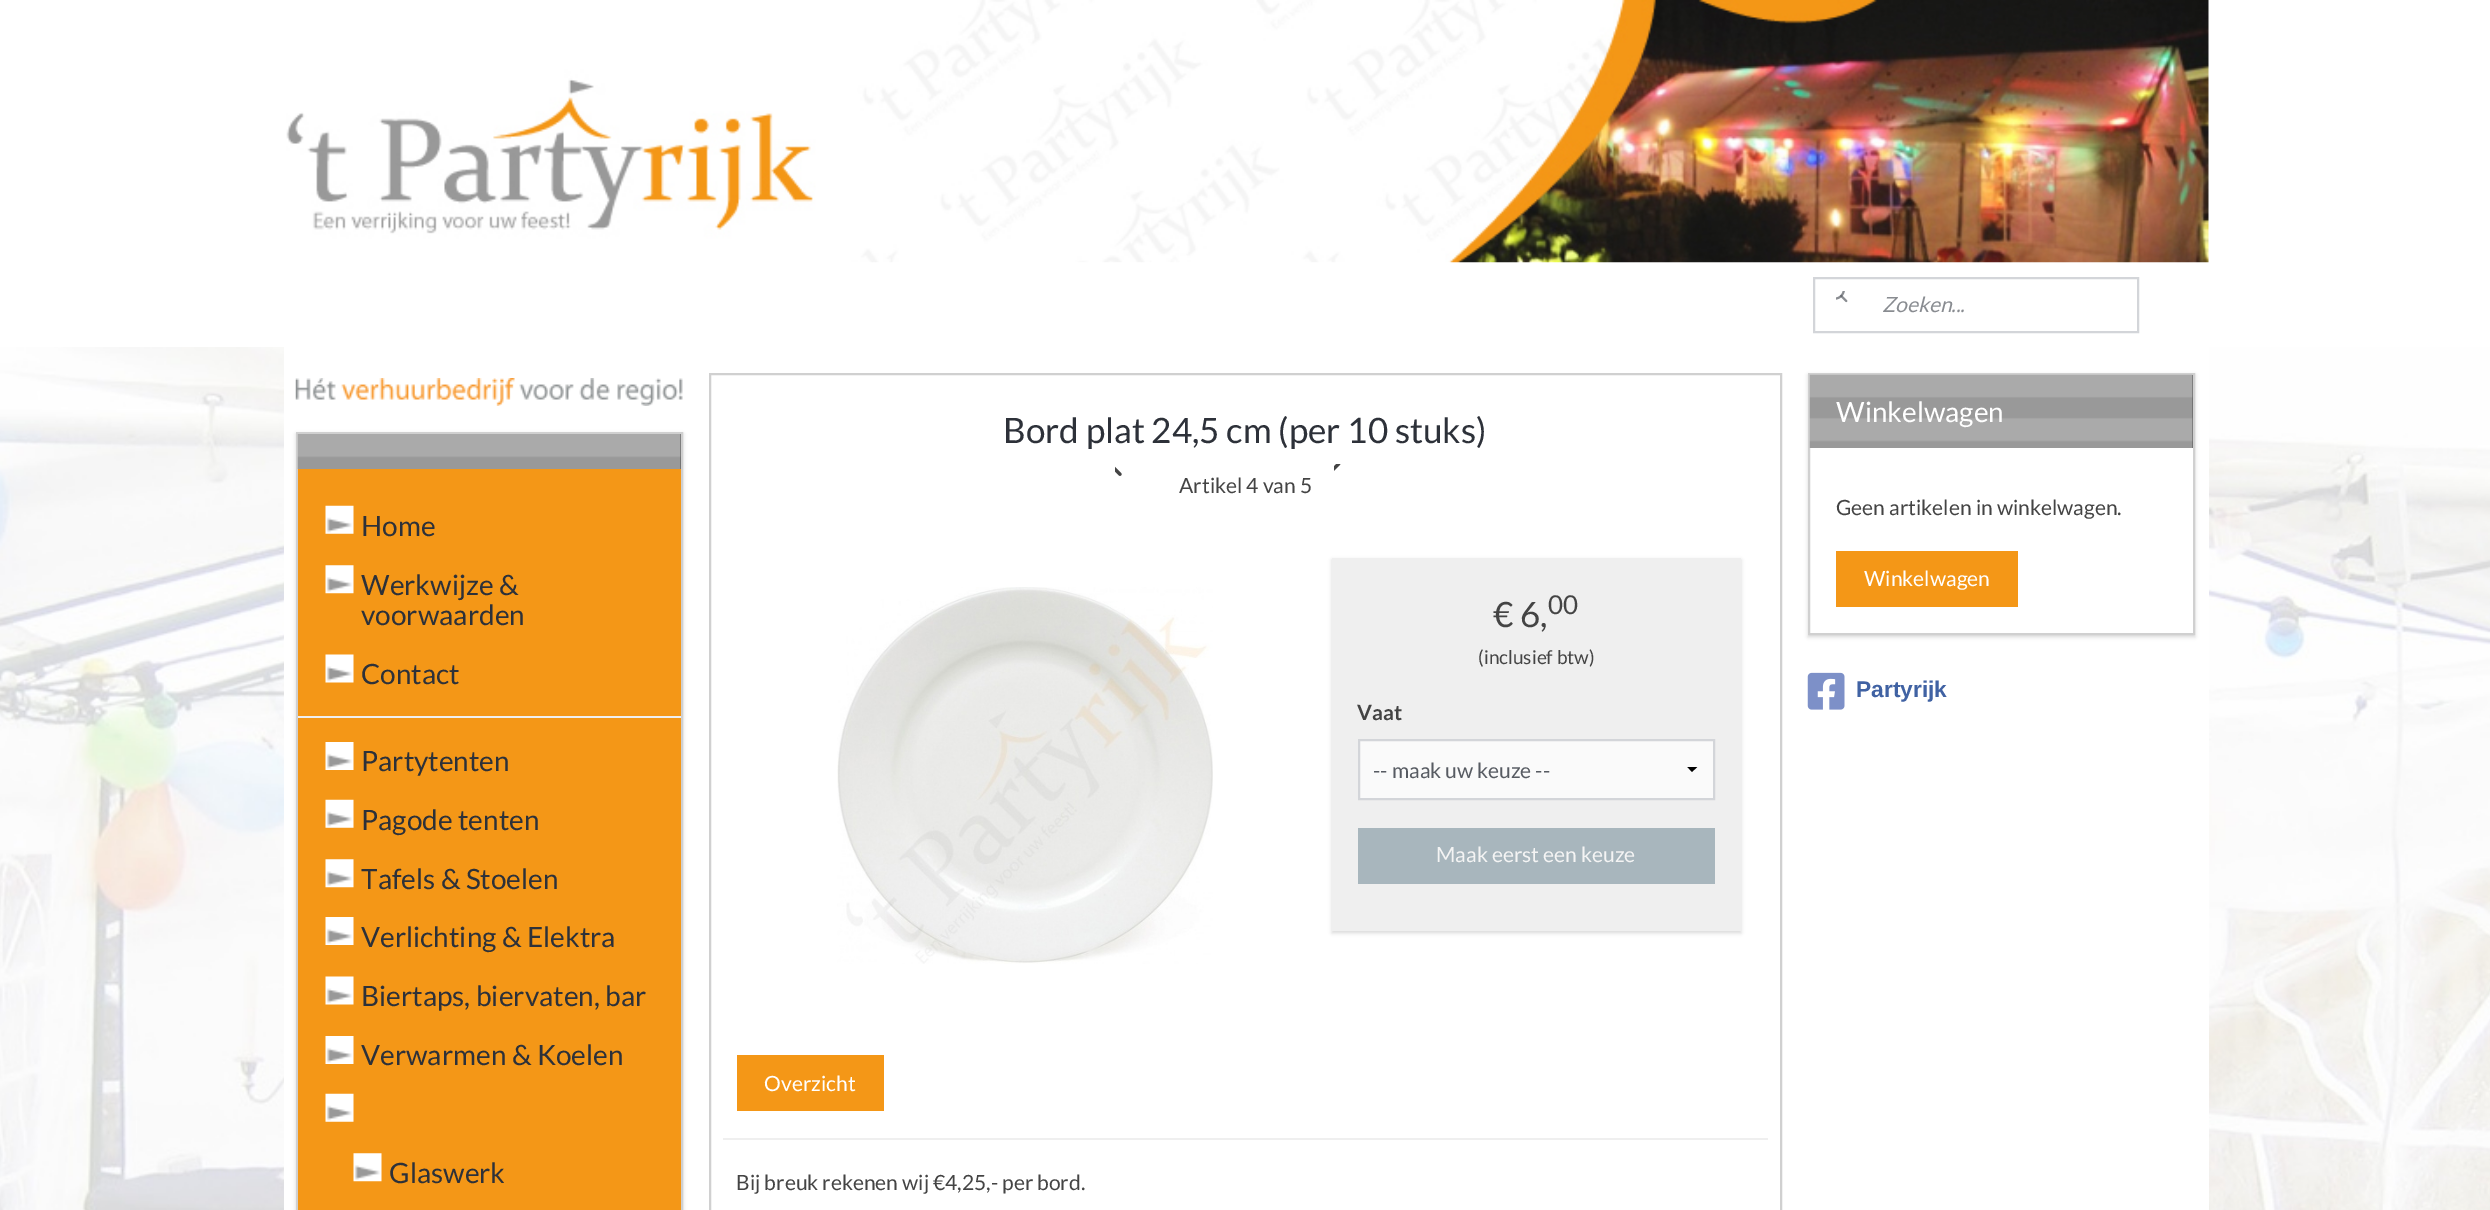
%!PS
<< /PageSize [2490 1210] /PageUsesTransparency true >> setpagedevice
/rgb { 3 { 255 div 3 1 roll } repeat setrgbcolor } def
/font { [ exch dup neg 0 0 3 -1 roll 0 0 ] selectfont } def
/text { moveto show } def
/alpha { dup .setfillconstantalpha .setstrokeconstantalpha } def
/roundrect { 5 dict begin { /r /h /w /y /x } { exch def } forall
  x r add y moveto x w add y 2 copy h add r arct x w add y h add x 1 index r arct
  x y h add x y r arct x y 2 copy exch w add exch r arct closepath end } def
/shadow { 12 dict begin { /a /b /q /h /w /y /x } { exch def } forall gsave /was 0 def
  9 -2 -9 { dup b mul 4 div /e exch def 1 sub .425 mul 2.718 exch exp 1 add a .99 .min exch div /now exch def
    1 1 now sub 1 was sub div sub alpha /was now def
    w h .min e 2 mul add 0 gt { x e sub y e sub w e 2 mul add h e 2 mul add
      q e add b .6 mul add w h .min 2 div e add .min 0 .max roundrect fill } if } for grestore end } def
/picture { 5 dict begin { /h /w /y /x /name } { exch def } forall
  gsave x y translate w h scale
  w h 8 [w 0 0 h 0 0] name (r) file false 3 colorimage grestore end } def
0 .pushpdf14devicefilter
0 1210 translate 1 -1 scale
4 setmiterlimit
255 255 255 rgb
0 0 2490 1210 rectfill
(img_01.rgb) 0 347 2490 863 picture
(img_02.rgb) 286 0 1923 263 picture
211 213 217 rgb
2 setlinewidth
1814 278 324 54 rectstroke
(img_03.rgb) 1836 291 12 12 picture
255 255 255 rgb
284 347 1925 863 rectfill
(img_04.rgb) 295 378 388 28 picture
0 0 0 rgb
296 434 387 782 0 2 0.15 shadow
208 208 208 rgb
297 433 385 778 rectstroke
68 68 68 rgb
680 434 1 35 rectfill
(img_05.rgb) 297 434 384 35 picture
244 151 23 rgb
298 469 383 741 rectfill
(img_06.rgb) 325 505 29 29 picture
(img_07.rgb) 325 565 29 29 picture
(img_08.rgb) 325 654 29 29 picture
239 239 239 rgb
298 716 383 2 rectfill
(img_09.rgb) 325 742 29 28 picture
(img_06.rgb) 325 799 29 29 picture
(img_07.rgb) 325 859 29 29 picture
(img_09.rgb) 325 917 29 28 picture
(img_08.rgb) 325 976 29 29 picture
(img_09.rgb) 325 1036 29 28 picture
(img_06.rgb) 325 1093 29 29 picture
(img_10.rgb) 353 1153 29 29 picture
208 208 208 rgb
710 374 1071 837 rectstroke
(img_11.rgb) 1115 466 7 10 picture
(img_12.rgb) 1334 464 7 7 picture
(img_13.rgb) 837 587 376 377 picture
0 0 0 rgb
1332 560 409 373 0 2 0.15 shadow
239 239 239 rgb
1332 558 409 373 rectfill
250 250 250 rgb
1360 741 353 57 rectfill
gsave
1671 767 42 5 rectclip
0 0 0 rgb
1697.5 766.5 moveto -5.5 5.5 rlineto -5 -5.5 rlineto closepath fill
grestore
211 213 217 rgb
1359 740 355 59 rectstroke
168 182 189 rgb
1358 828 357 56 rectfill
244 151 23 rgb
737 1055 147 56 rectfill
239 239 239 rgb
723 1138 1045 2 rectfill
0 0 0 rgb
1808 375 387 262 0 2 0.15 shadow
255 255 255 rgb
1810 448 383 185 rectfill
208 208 208 rgb
1809 374 385 260 rectstroke
68 68 68 rgb
2192 375 1 73 rectfill
(img_14.rgb) 1809 374 384 74 picture
244 151 23 rgb
1836 551 182 56 rectfill
(img_15.rgb) 1807 672 38 38 picture
/Lato-Italic 21 font
137 140 145 rgb
(Zoeken...) 1882 312 text
/Lato-Regular 28 font
45 49 57 rgb
(Home) 361 536 text
(Werkwijze &) 361 595 text
(voorwaarden) 361 625 text
(Contact) 361 684 text
(Partytenten) 361 771 text
(Pagode tenten) 361 830 text
(Tafels & Stoelen) 361 889 text
(Verlichting & Elektra) 361 947 text
(Biertaps, biervaten, bar) 361 1006 text
(Verwarmen & Koelen) 361 1065 text
(Glaswerk) 389 1183 text
/Lato-Regular 35 font
(Bord plat 24,5 cm \(per 10 stuks\)) 1003 443 text
/Lato-Regular 21 font
68 68 68 rgb
(Artikel 4 van 5) 1179 493 text
/Lato-Regular 35 font
(€ 6,) 1493 627 text
/Lato-Regular 26 font
(00) 1548 614 text
/Lato-Regular 19 font
(\(inclusief btw\)) 1478 664 text
/Lato-Bold 21 font
(Vaat) 1357 720 text
/Lato-Regular 21 font
87 91 98 rgb
(-- maak uw keuze --) 1373 778 text
244 244 244 rgb
(Maak eerst een keuze) 1436 862 text
255 255 255 rgb
(Overzicht) 764 1091 text
68 68 68 rgb
(Bij breuk rekenen wij €4,25,- per bord.) 736 1190 text
/Lato-Regular 28 font
255 255 255 rgb
(Winkelwagen) 1836 422 text
/Lato-Regular 21 font
68 68 68 rgb
(Geen artikelen in winkelwagen.) 1836 515 text
255 255 255 rgb
(Winkelwagen) 1864 586 text
/LiberationSans-Bold 22.75 font
64 98 163 rgb
(Partyrijk) 1856 697 text
.poppdf14devicefilter showpage
